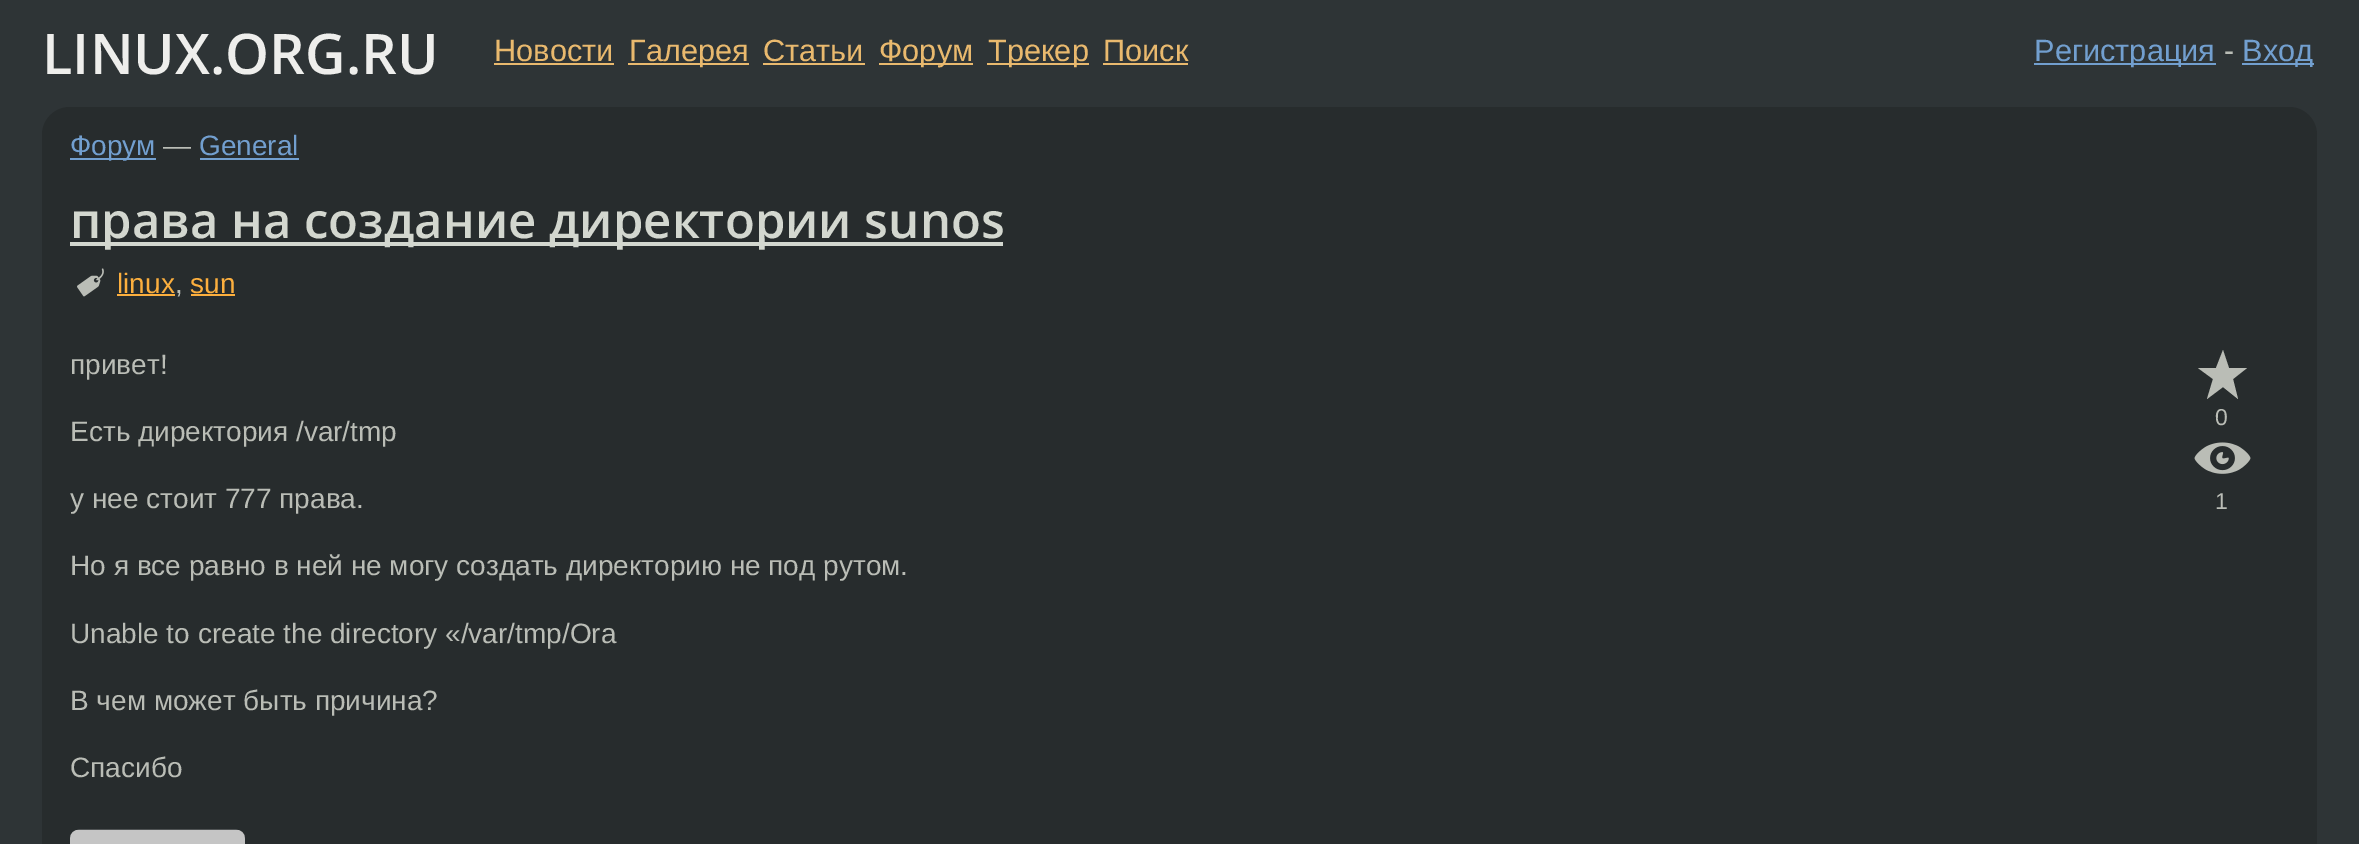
%!PS
<< /PageSize [2359 844] >> setpagedevice
/rgb { 3 { 255 div 3 1 roll } repeat setrgbcolor } def
/font { [ exch dup neg 0 0 3 -1 roll 0 0 ] selectfont } def
/text { moveto show } def
/roundrect { 5 dict begin { /r /h /w /y /x } { exch def } forall
  x r add y moveto x w add y 2 copy h add r arct x w add y h add x 1 index r arct
  x y h add x y r arct x y 2 copy exch w add exch r arct closepath end } def
/picture { 5 dict begin { /h /w /y /x /name } { exch def } forall
  gsave x y translate w h scale
  w h 8 [w 0 0 h 0 0] name (r) file false 3 colorimage grestore end } def
0 844 translate 1 -1 scale
4 setmiterlimit
46 52 54 rgb
0 0 2359 844 rectfill
233 185 110 rgb
494 63 120 2 rectfill
628 63 121 2 rectfill
763 63 102 2 rectfill
879 63 94 2 rectfill
987 63 102 2 rectfill
1103 63 85 2 rectfill
114 159 207 rgb
2034 63 182 2 rectfill
2242 63 72 2 rectfill
39 44 45 rgb
42 107 2275 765 28 roundrect fill
114 159 207 rgb
70 158 86 2 rectfill
200 158 99 2 rectfill
211 215 207 rgb
70 242 933 4 rectfill
(img_01.rgb) 77 268 27 29 picture
252 175 62 rgb
117 294 58 2 rectfill
191 294 44 2 rectfill
186 189 182 rgb
2223 350 moveto 6 18 rlineto 18 0 rlineto -14 11 rlineto 5 20 rlineto -15 -12 rlineto -16 12 rlineto 6 -20 rlineto -15 -11 rlineto 18 0 rlineto closepath fill
(img_02.rgb) 2194 442 57 32 picture
(img_03.rgb) 70 829 175 15 picture
/OpenSans-SemiBold 56 font
238 238 236 rgb
(LINUX.ORG.RU) 42 74 text
/LiberationSans-Regular 30.75 font
233 185 110 rgb
(Новости) 494 61 text
(Галерея) 629 61 text
(Статьи) 763 61 text
(Форум) 879 61 text
(Трекер) 988 61 text
(Поиск) 1103 61 text
114 159 207 rgb
(Регистрация) 2034 61 text
186 189 182 rgb
(-) 2224 61 text
114 159 207 rgb
(Вход) 2242 61 text
/LiberationSans-Regular 28 font
(Форум) 70 155 text
186 189 182 rgb
(—) 163 155 text
114 159 207 rgb
(General) 199 155 text
/OpenSans-SemiBold 49.1 font
211 215 207 rgb
(права на создание директории sunos) 70 238 text
/LiberationSans-Regular 28 font
252 175 62 rgb
(linux) 117 293 text
186 189 182 rgb
(,) 175 293 text
252 175 62 rgb
(sun) 190 293 text
186 189 182 rgb
(привет!) 70 374 text
(Есть директория /var/tmp) 70 441 text
(у нее стоит 777 права.) 70 508 text
(Но я все равно в ней не могу создать директорию не под рутом.) 70 575 text
(Unable to create the directory «/var/tmp/Ora) 70 643 text
(В чем может быть причина?) 70 710 text
(Спасибо) 70 777 text
/LiberationSans-Regular 23 font
(0) 2215 425 text
(1) 2215 509 text
showpage
